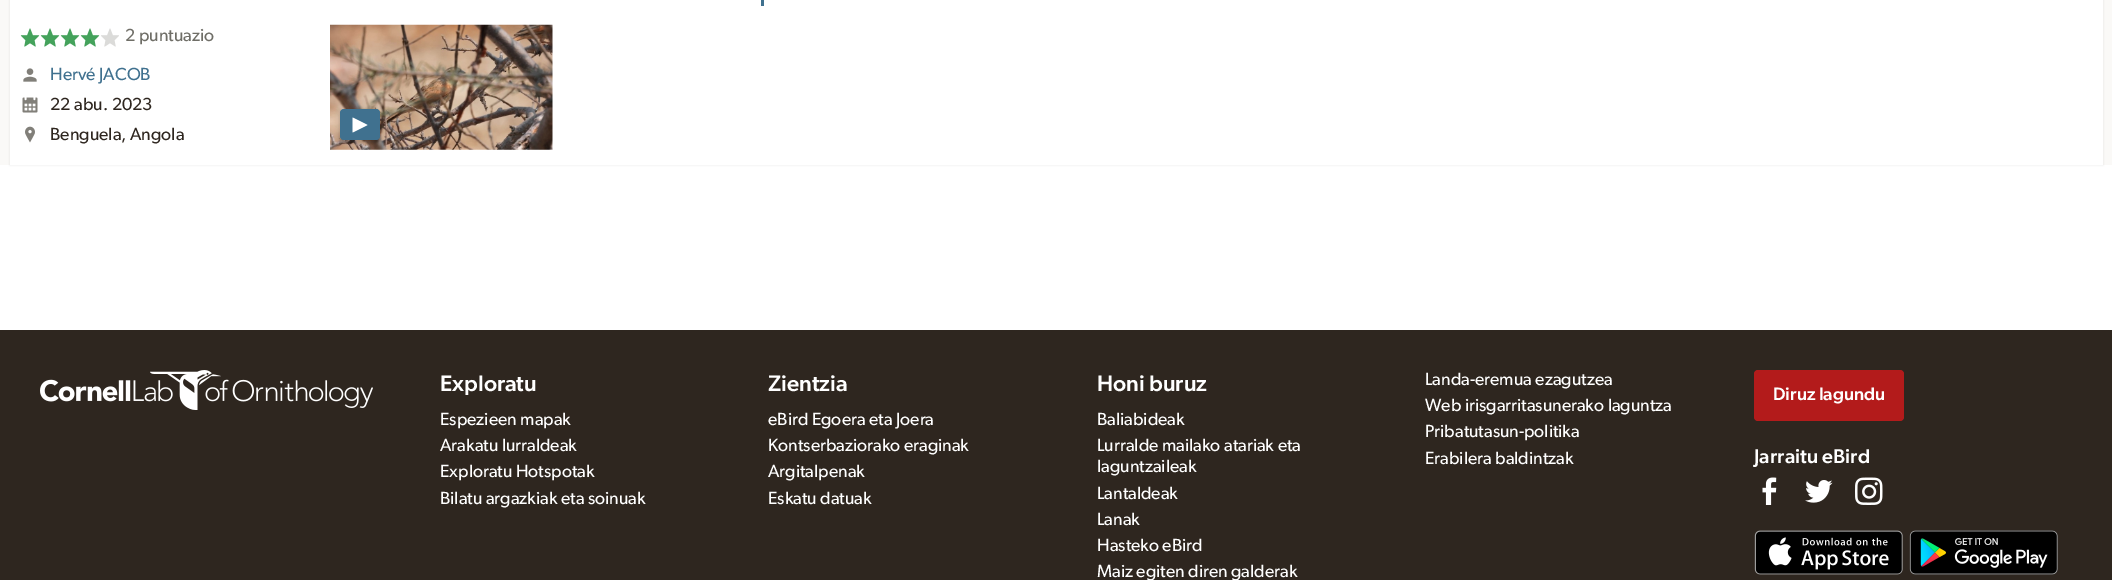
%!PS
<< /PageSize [2112 580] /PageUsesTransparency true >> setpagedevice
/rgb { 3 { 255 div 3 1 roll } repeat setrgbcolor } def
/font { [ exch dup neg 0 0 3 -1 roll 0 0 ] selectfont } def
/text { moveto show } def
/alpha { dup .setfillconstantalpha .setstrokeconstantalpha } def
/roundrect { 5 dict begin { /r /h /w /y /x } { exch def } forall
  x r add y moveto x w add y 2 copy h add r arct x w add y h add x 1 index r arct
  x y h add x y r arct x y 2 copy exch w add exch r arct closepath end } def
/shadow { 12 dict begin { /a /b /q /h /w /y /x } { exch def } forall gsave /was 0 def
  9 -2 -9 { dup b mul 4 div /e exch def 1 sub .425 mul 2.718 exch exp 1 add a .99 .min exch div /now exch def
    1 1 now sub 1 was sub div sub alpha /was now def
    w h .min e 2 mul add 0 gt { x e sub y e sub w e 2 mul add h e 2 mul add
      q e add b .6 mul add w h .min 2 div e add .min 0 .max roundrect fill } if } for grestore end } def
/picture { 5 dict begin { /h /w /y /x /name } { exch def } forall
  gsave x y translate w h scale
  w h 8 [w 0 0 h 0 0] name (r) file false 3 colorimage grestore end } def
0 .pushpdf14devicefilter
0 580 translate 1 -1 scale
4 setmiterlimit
255 255 255 rgb
0 0 2112 580 rectfill
250 249 247 rgb
0 0 2112 165 rectfill
0 0 0 rgb
10 -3 2093 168 0 1 0.1 shadow
255 255 255 rgb
10 0 2093 165 rectfill
64 113 143 rgb
761 0 3 6 rectfill
(img_01.rgb) 20 28 20 19 picture
(img_01.rgb) 40 28 20 19 picture
(img_01.rgb) 60 28 20 19 picture
(img_01.rgb) 80 28 20 19 picture
(img_02.rgb) 101 28 18 19 picture
(img_03.rgb) 23 68 14 14 picture
(img_04.rgb) 22 97 16 16 picture
(img_05.rgb) 25 126 10 17 picture
(img_06.rgb) 330 24 223 126 picture
0 0 0 rgb
340 111 40 32 4 2.5 0.2 shadow
64 113 143 rgb
340 109 40 31 4 roundrect fill
(img_07.rgb) 352 117 16 16 picture
46 38 31 rgb
0 330 2112 250 rectfill
(img_08.rgb) 40 370 333 40 picture
179 27 27 rgb
1754 370 150 51 4 roundrect fill
(img_09.rgb) 1762 477 15 28 picture
(img_10.rgb) 1805 480 28 23 picture
(img_11.rgb) 1855 477 28 28 picture
(img_12.rgb) 1754 530 149 45 picture
(img_13.rgb) 1909 530 149 45 picture
/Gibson-Regular 17.6 font
111 110 103 rgb
(2 puntuazio) 125 41 text
64 113 143 rgb
(Hervé JACOB) 50 80 text
46 38 31 rgb
(22 abu. 2023) 50 110 text
(Benguela, Angola) 50 140 text
/Gibson-Medium 22.5 font
255 255 255 rgb
(Exploratu) 440 391 text
/Gibson-Regular 17.6 font
(Espezieen mapak) 440 425 text
(Arakatu lurraldeak) 440 451 text
(Exploratu Hotspotak) 440 477 text
(Bilatu argazkiak eta soinuak) 440 504 text
/Gibson-Medium 22.5 font
(Zientzia) 768 391 text
/Gibson-Regular 17.6 font
(eBird Egoera eta Joera) 768 425 text
(Kontserbaziorako eraginak) 768 451 text
(Argitalpenak) 768 477 text
(Eskatu datuak) 768 504 text
/Gibson-Medium 22.5 font
(Honi buruz) 1097 391 text
/Gibson-Regular 17.6 font
(Baliabideak) 1097 425 text
(Lurralde mailako atariak eta) 1097 451 text
(laguntzaileak) 1097 472 text
(Lantaldeak) 1097 499 text
(Lanak) 1097 525 text
(Hasteko eBird) 1097 551 text
(Maiz egiten diren galderak) 1097 577 text
(Landa-eremua ezagutzea) 1425 385 text
(Web irisgarritasunerako laguntza) 1425 411 text
(Pribatutasun-politika) 1425 437 text
(Erabilera baldintzak) 1425 464 text
/Gibson-Medium 18 font
(Diruz lagundu) 1773 400 text
/Gibson-Medium 20 font
1754 463 moveto 0.1 0 (Jarraitu eBird) ashow
.poppdf14devicefilter showpage
